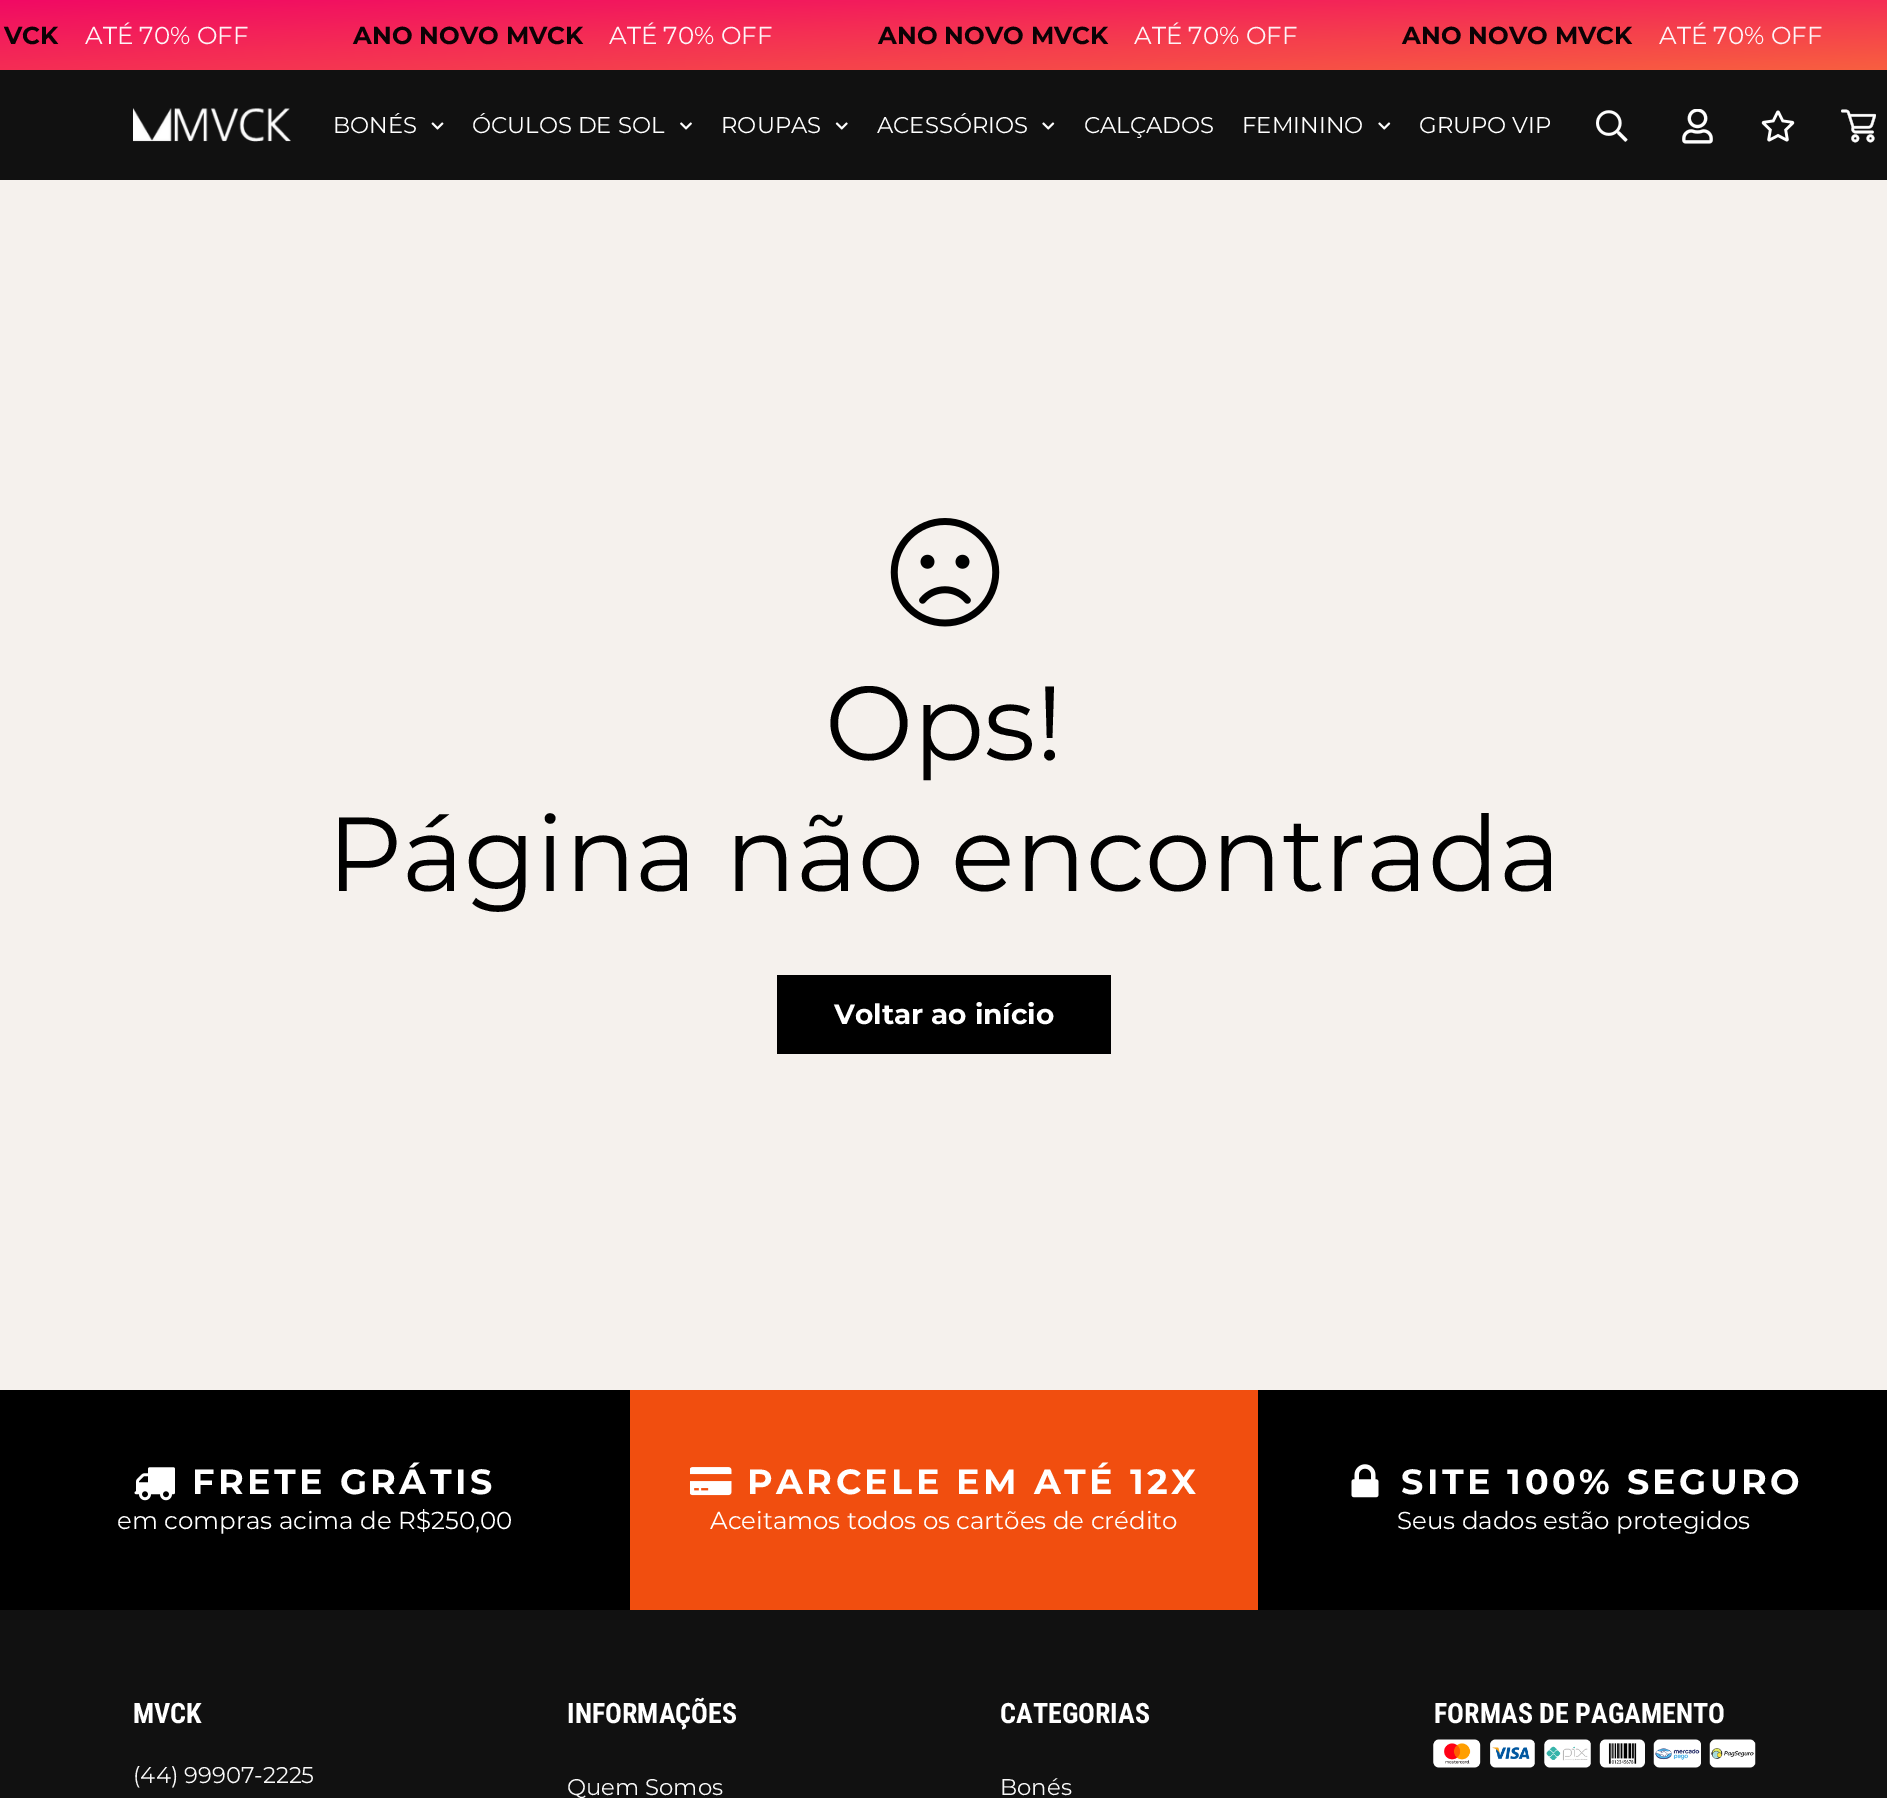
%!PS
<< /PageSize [1887 1798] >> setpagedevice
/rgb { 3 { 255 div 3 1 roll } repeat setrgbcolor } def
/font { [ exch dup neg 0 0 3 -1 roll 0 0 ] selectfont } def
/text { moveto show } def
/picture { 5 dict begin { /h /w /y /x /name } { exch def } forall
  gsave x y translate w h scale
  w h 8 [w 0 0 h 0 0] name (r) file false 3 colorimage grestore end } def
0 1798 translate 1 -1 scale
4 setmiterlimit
0 0 0 rgb
0 0 1887 1798 rectfill
gsave 0 0 moveto 1887 0 rlineto 0 70 rlineto -1887 0 rlineto closepath clip newpath 3777 140 translate 5341 198 scale
<< /ShadingType 3 /ColorSpace /DeviceRGB /Coords [0 0 0 0 0 1] /Extend [true true] /Function << /FunctionType 2 /Domain [0 1] /C0 [1 0.71 0.11] /C1 [0.945 0.035 0.392] /N 1 >> >> shfill grestore
17 17 17 rgb
0 70 1887 110 rectfill
(img_01.rgb) 133 108 158 34 picture
(img_02.rgb) 431 122 13 8 picture
(img_03.rgb) 680 122 12 8 picture
(img_04.rgb) 835 122 13 8 picture
(img_05.rgb) 1042 122 13 8 picture
(img_05.rgb) 1378 122 13 8 picture
(img_06.rgb) 1596 110 32 32 picture
(img_07.rgb) 1682 109 31 35 picture
(img_08.rgb) 1761 110 34 32 picture
(img_09.rgb) 1841 109 35 34 picture
245 241 237 rgb
0 180 1887 1210 rectfill
(img_10.rgb) 890 518 110 109 picture
0 0 0 rgb
777 975 334 79 rectfill
(img_11.rgb) 134 1467 41 34 picture
241 78 15 rgb
630 1390 628 220 rectfill
(img_12.rgb) 690 1467 42 29 picture
(img_13.rgb) 1351 1464 28 34 picture
17 17 17 rgb
0 1610 1887 188 rectfill
(img_14.rgb) 1433 1739 48 29 picture
(img_15.rgb) 1490 1739 45 29 picture
(img_16.rgb) 1544 1739 47 29 picture
(img_17.rgb) 1599 1739 46 29 picture
(img_18.rgb) 1653 1739 48 29 picture
(img_19.rgb) 1709 1739 47 29 picture
/Montserrat-Bold 24.5 font
12 2 5 rgb
(VCK) 4 44 text
/Montserrat-Regular 24.5 font
254 244 247 rgb
(ATÉ 70% OFF) 85 44 text
/Montserrat-Bold 24.5 font
12 2 5 rgb
(ANO NOVO MVCK) 353 44 text
/Montserrat-Regular 24.5 font
254 244 247 rgb
(ATÉ 70% OFF) 609 44 text
/Montserrat-Bold 24.5 font
12 2 5 rgb
(ANO NOVO MVCK) 878 44 text
/Montserrat-Regular 24.5 font
254 244 247 rgb
(ATÉ 70% OFF) 1134 44 text
/Montserrat-Bold 24.5 font
12 2 5 rgb
(ANO NOVO MVCK) 1402 44 text
/Montserrat-Regular 24.5 font
254 244 247 rgb
(ATÉ 70% OFF) 1659 44 text
/Montserrat-Regular 22.75 font
255 255 255 rgb
(BONÉS) 333 133 text
(ÓCULOS DE SOL) 472 133 text
(ROUPAS) 721 133 text
(ACESSÓRIOS) 877 133 text
(CALÇADOS) 1084 133 text
(FEMININO) 1242 133 text
(GRUPO VIP) 1419 133 text
/Montserrat-Regular 105 font
0 0 0 rgb
(Ops!) 825 760 text
(Página não encontrada) 327 891 text
/Montserrat-Bold 28 font
255 255 255 rgb
(Voltar ao início) 834 1024 text
/Montserrat-Bold 35 font
192 1494 moveto 3.5 0 (FRETE GRÁTIS) ashow
/Montserrat-Regular 24.5 font
(em compras acima de R$250,00) 117 1529 text
/Montserrat-Bold 35 font
747 1494 moveto 3.5 0 (PARCELE EM ATÉ 12X) ashow
/Montserrat-Regular 24.5 font
(Aceitamos todos os cartões de crédito) 710 1529 text
/Montserrat-Bold 35 font
1401 1494 moveto 3.5 0 (SITE 100% SEGURO) ashow
/Montserrat-Regular 24.5 font
(Seus dados estão protegidos) 1397 1529 text
/RobotoCondensed-Bold 28 font
(MVCK) 133 1723 text
/Montserrat-Regular 22.75 font
248 248 248 rgb
(\(44\) 99907-2225) 133 1783 text
/RobotoCondensed-Bold 28 font
255 255 255 rgb
(INFORMAÇÕES) 567 1723 text
/Montserrat-Regular 22.75 font
248 248 248 rgb
(Quem Somos) 567 1795 text
/RobotoCondensed-Bold 28 font
255 255 255 rgb
(CATEGORIAS) 1000 1723 text
/Montserrat-Regular 22.75 font
248 248 248 rgb
(Bonés) 1000 1795 text
/RobotoCondensed-Bold 28 font
255 255 255 rgb
(FORMAS DE PAGAMENTO) 1434 1723 text
showpage
